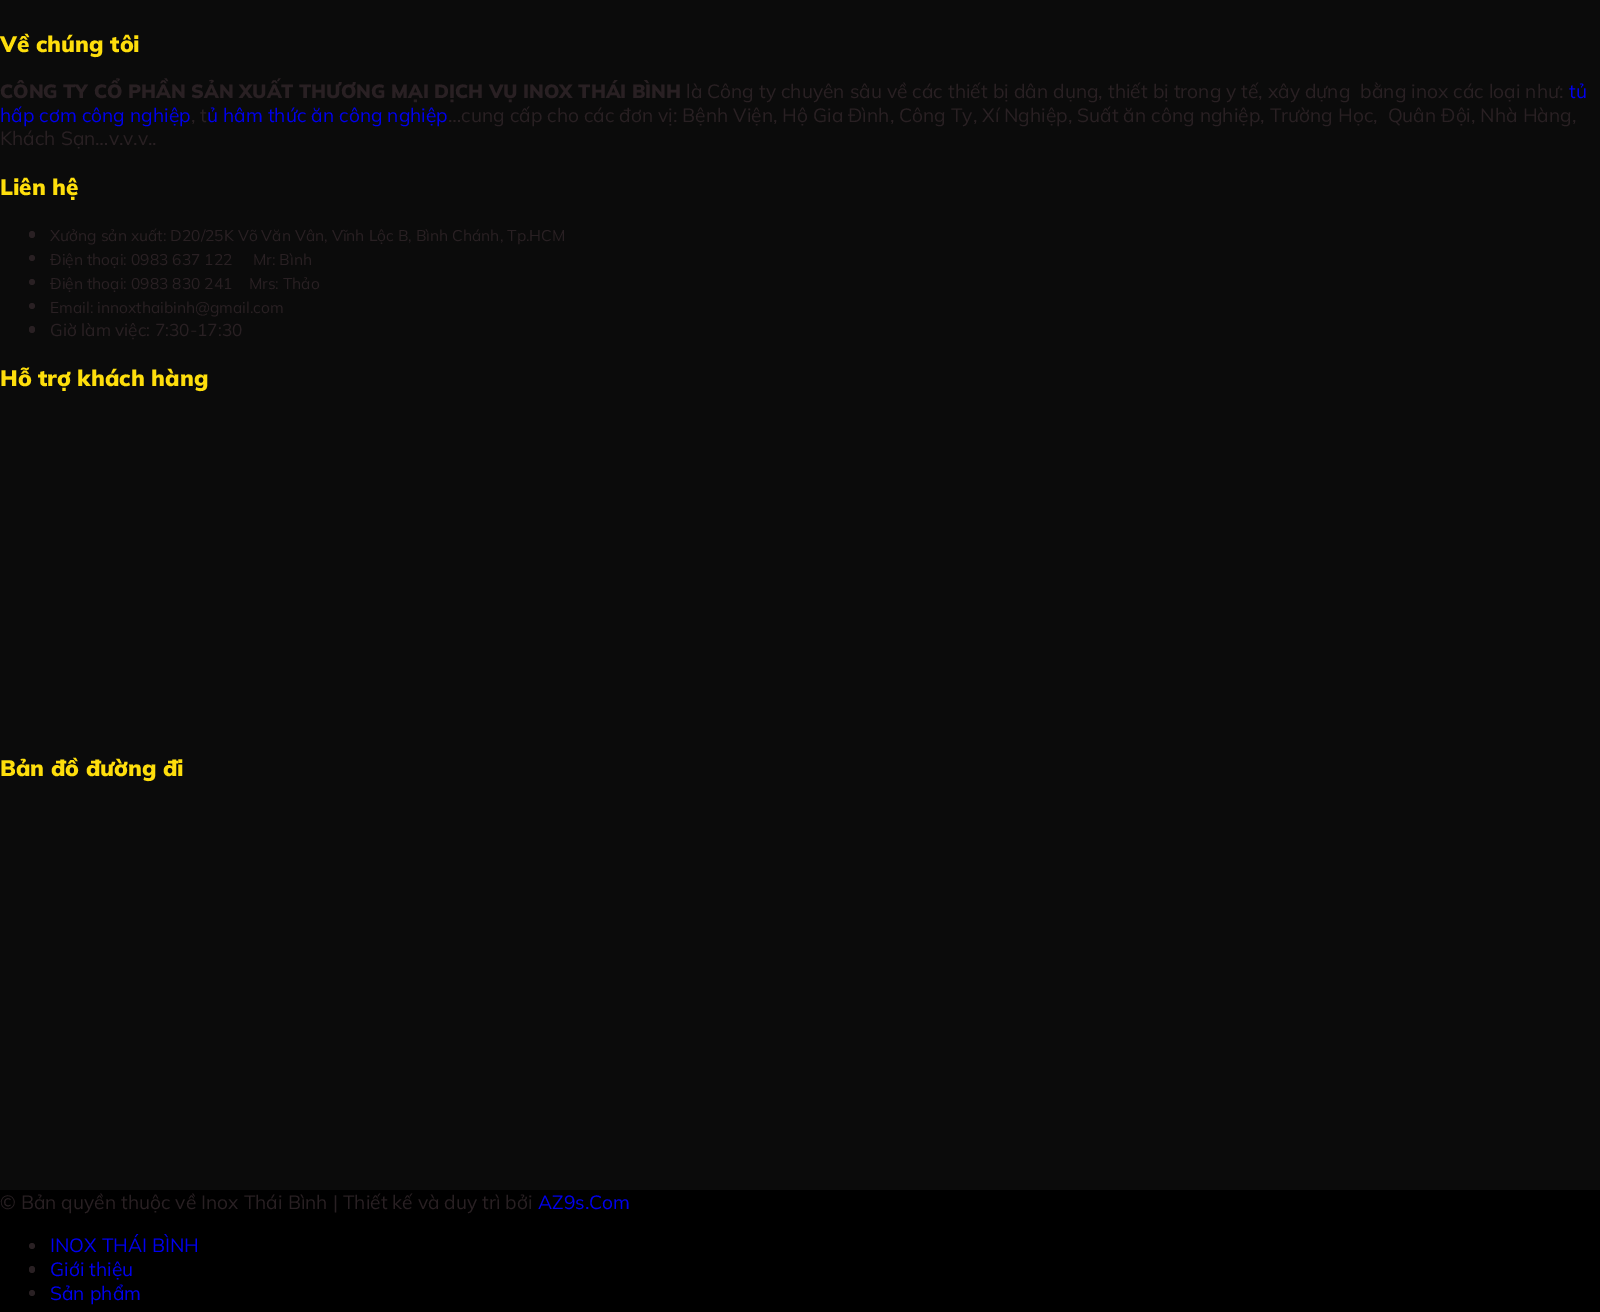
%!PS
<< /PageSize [1600 1312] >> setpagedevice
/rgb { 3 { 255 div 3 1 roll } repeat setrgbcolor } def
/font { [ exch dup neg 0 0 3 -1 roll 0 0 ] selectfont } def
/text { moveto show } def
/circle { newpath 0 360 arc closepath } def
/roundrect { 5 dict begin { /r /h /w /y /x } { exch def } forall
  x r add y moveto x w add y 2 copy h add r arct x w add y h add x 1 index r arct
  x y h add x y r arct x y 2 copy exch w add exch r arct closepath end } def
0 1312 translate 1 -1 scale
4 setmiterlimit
0 0 0 rgb
0 0 1600 1312 rectfill
11 11 11 rgb
0 0 1600 1190 rectfill
41 32 35 rgb
29 231 6 7 3 roundrect fill
32 258 3 circle fill
32 282 3 circle fill
32 306 3 circle fill
29 326 6 7 3 roundrect fill
32 1246 3 circle fill
29 1266 6 7 3 roundrect fill
32 1293 3 circle fill
/Mulish-Black 22.5 font
254 222 12 rgb
(Về chúng tôi) 0 52 text
/Mulish-Black 19.2 font
41 32 35 rgb
(CÔNG TY CỔ PHẦN SẢN XUẤT THƯƠNG MẠI DỊCH VỤ INOX THÁI BÌNH) 0 98 text
/Mulish-Regular 19.2 font
(là Công ty chuyên sâu về các thiết bị dân dụng, thiết bị trong y tế, xây dựng  bằng inox các loại như:) 686 98 text
0 0 238 rgb
(tủ) 1569 98 text
(hấp cơm công nghiệp) 0 122 text
41 32 35 rgb
(, t) 191 122 text
0 0 238 rgb
(ủ hâm thức ăn công nghiệp) 207 122 text
41 32 35 rgb
(…cung cấp cho các đơn vị: Bệnh Viện, Hộ Gia Đình, Công Ty, Xí Nghiệp, Suất ăn công nghiệp, Trường Học,  Quân Đội, Nhà Hàng,) 448 122 text
(Khách Sạn…v.v.v..) 0 145 text
/Mulish-Black 22.5 font
254 222 12 rgb
(Liên hệ) 0 195 text
/Mulish-Regular 15.55 font
41 32 35 rgb
(Xưởng sản xuất: D20/25K Võ Văn Vân, Vĩnh Lộc B, Bình Chánh, Tp.HCM) 50 241 text
(Điện thoại: 0983 637 122     Mr: Bình) 50 265 text
(Điện thoại: 0983 830 241    Mrs: Thảo) 50 289 text
(Email: innoxthaibinh@gmail.com) 50 313 text
/Mulish-Regular 17.25 font
(Giờ làm việc: 7:30-17:30) 50 336 text
/Mulish-Black 22.5 font
254 222 12 rgb
(Hỗ trợ khách hàng) 0 386 text
(Bản đồ đường đi) 0 776 text
/Mulish-Regular 19.2 font
41 32 35 rgb
(© Bản quyền thuộc về Inox Thái Bình | Thiết kế và duy trì bởi) 0 1209 text
0 0 238 rgb
(AZ9s.Com) 538 1209 text
(INOX THÁI BÌNH) 50 1252 text
(Giới thiệu) 50 1276 text
(Sản phẩm) 50 1300 text
showpage
